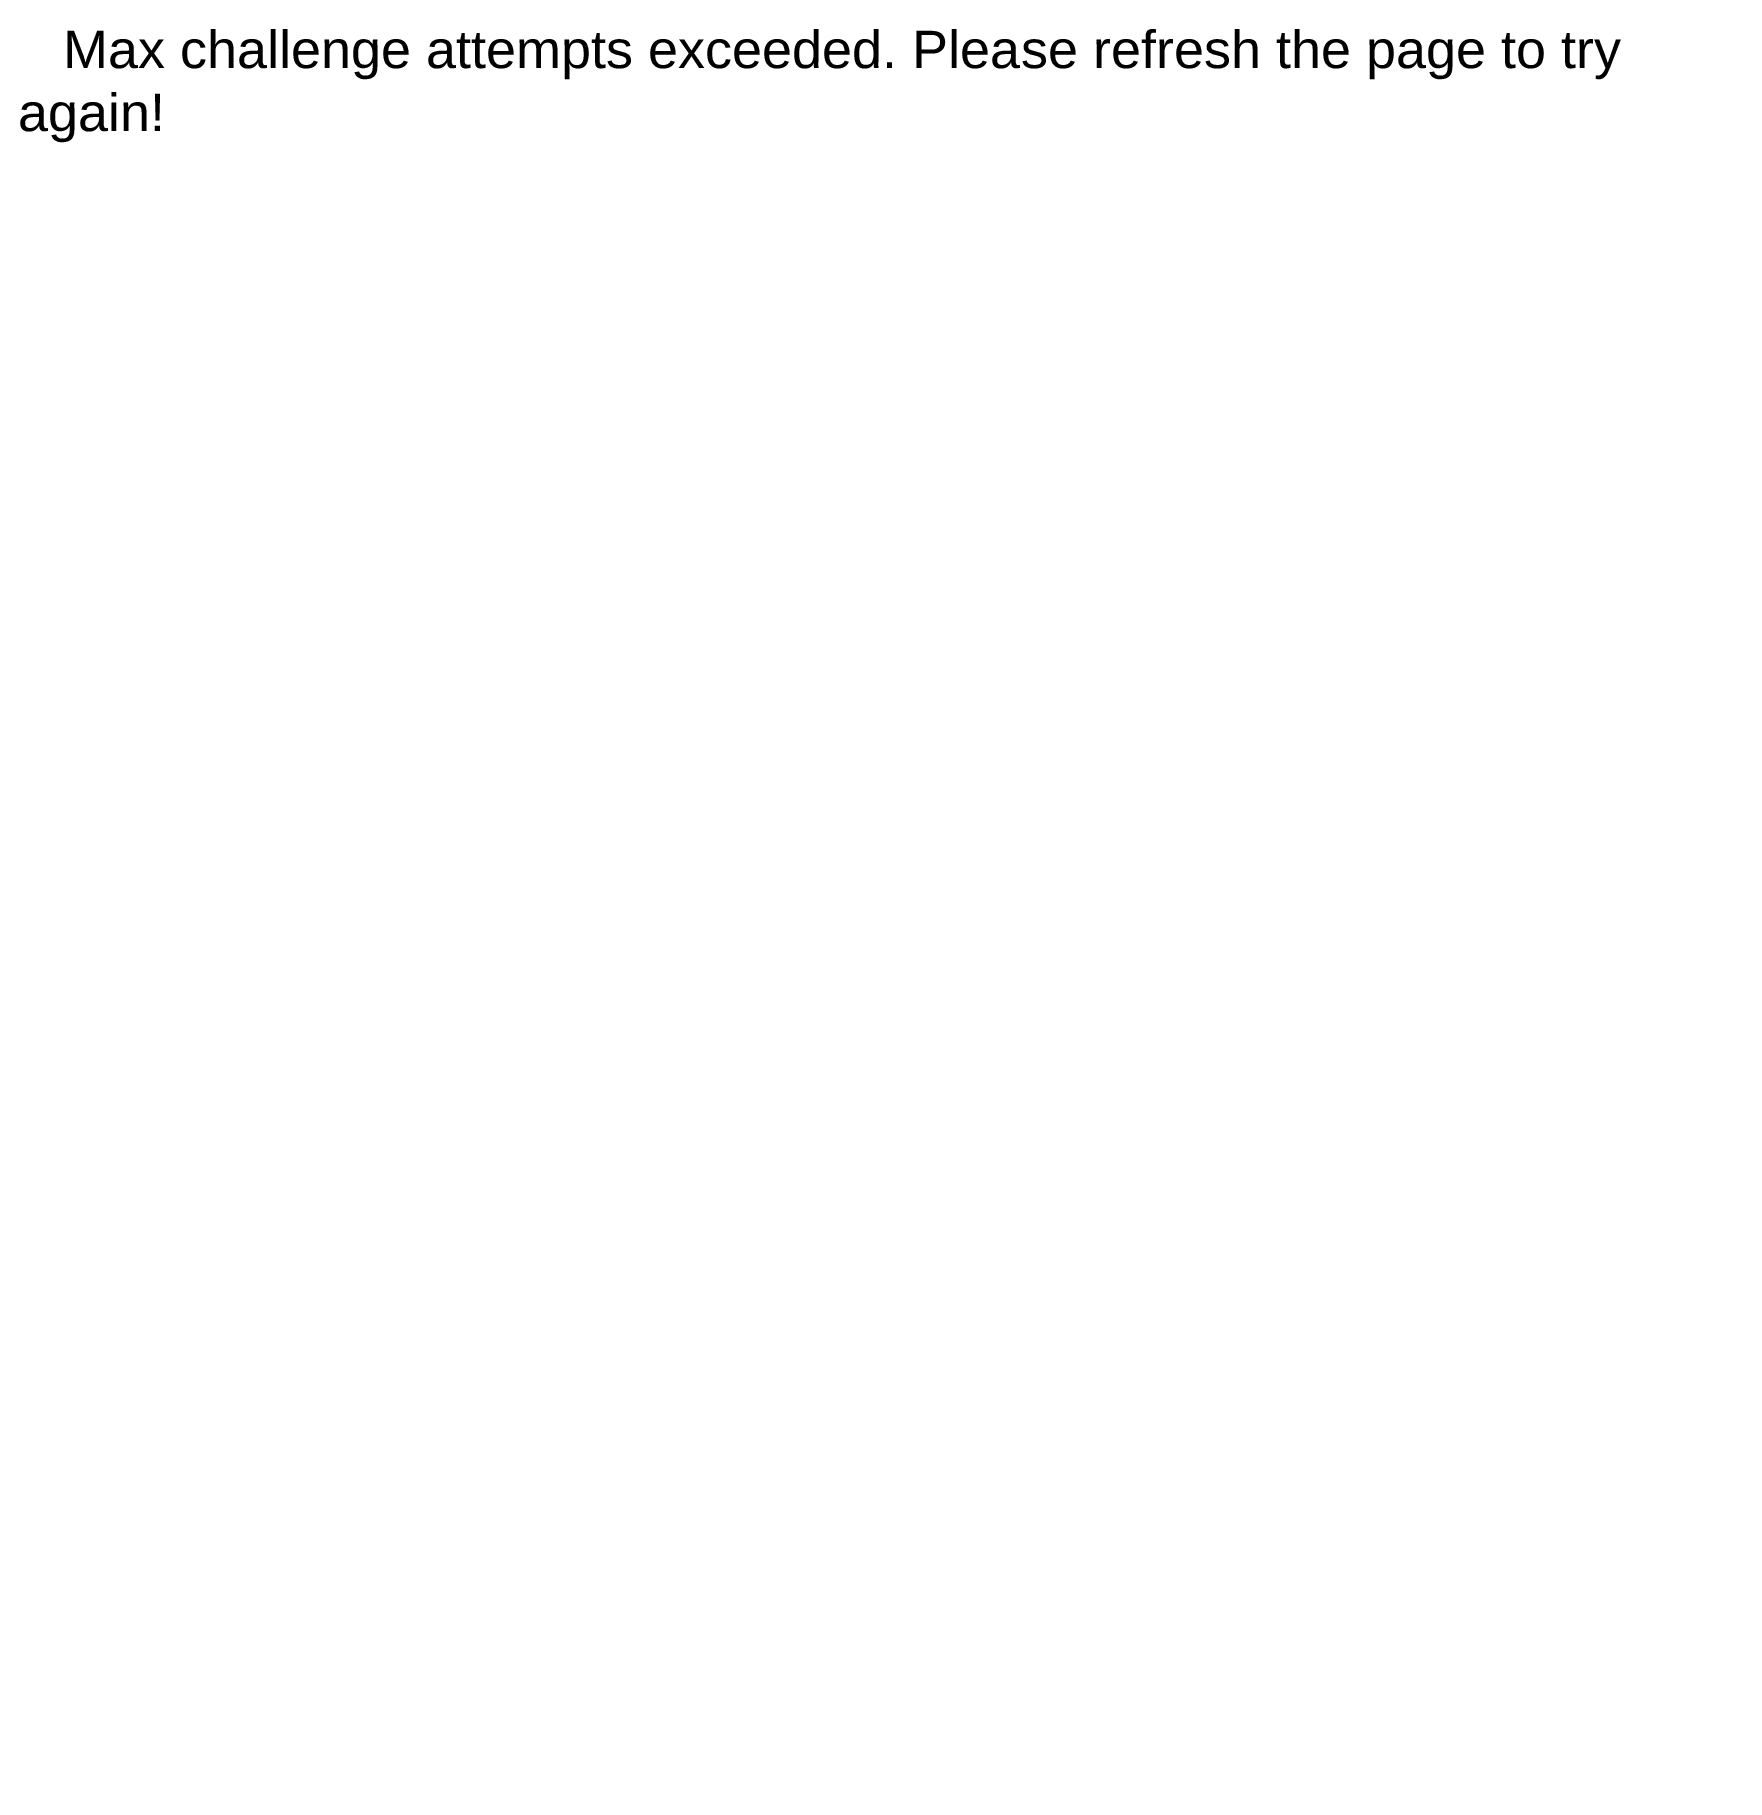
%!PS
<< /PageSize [1762 1815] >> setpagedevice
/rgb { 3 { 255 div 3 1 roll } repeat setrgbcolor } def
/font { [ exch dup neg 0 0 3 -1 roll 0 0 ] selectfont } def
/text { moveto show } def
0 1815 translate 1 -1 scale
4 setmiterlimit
255 255 255 rgb
0 0 1762 1815 rectfill
/LiberationSans-Regular 54 font
0 0 0 rgb
(Max challenge attempts exceeded. Please refresh the page to try) 63 68 text
(again!) 18 131 text
showpage
